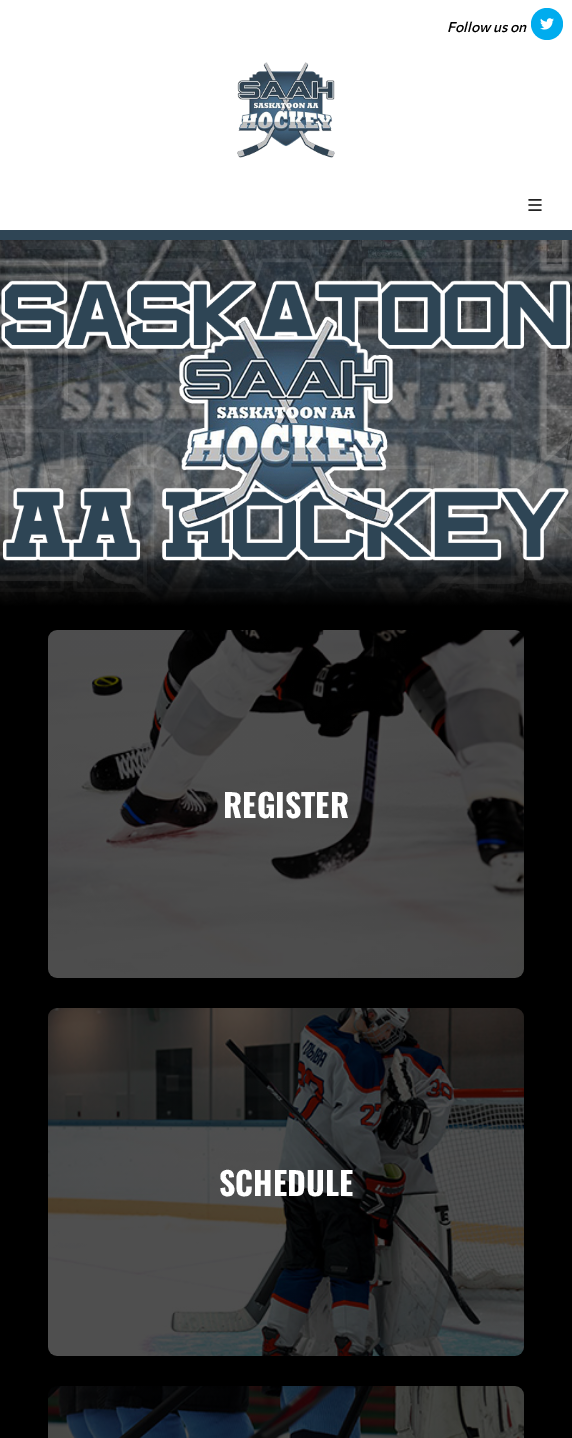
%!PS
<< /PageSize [572 1438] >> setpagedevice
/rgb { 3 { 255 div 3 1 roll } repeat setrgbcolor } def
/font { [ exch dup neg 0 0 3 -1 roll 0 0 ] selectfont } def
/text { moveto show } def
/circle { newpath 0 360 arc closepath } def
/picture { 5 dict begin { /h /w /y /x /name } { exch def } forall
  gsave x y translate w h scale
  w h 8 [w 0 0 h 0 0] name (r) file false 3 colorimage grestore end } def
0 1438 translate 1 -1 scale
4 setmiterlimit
255 255 255 rgb
0 0 572 1438 rectfill
0 172 238 rgb
547 24 16 circle fill
(img_01.rgb) 540 18 14 12 picture
47 69 85 rgb
0 230 572 10 rectfill
(img_02.rgb) 237 62 98 96 picture
(img_03.rgb) 528 199 14 12 picture
(img_04.rgb) 0 240 572 366 picture
(img_05.rgb) 1 280 569 281 picture
0 0 0 rgb
0 606 572 832 rectfill
(img_06.rgb) 48 630 476 348 picture
(img_07.rgb) 48 1008 476 348 picture
(img_08.rgb) 48 1386 476 52 picture
/Commissioner-MediumItalic 14 font
(Follow us on) 447 32 text
/Oswald-Bold 32 font
255 255 255 rgb
(REGISTER) 223 818 text
(SCHEDULE) 219 1196 text
showpage
